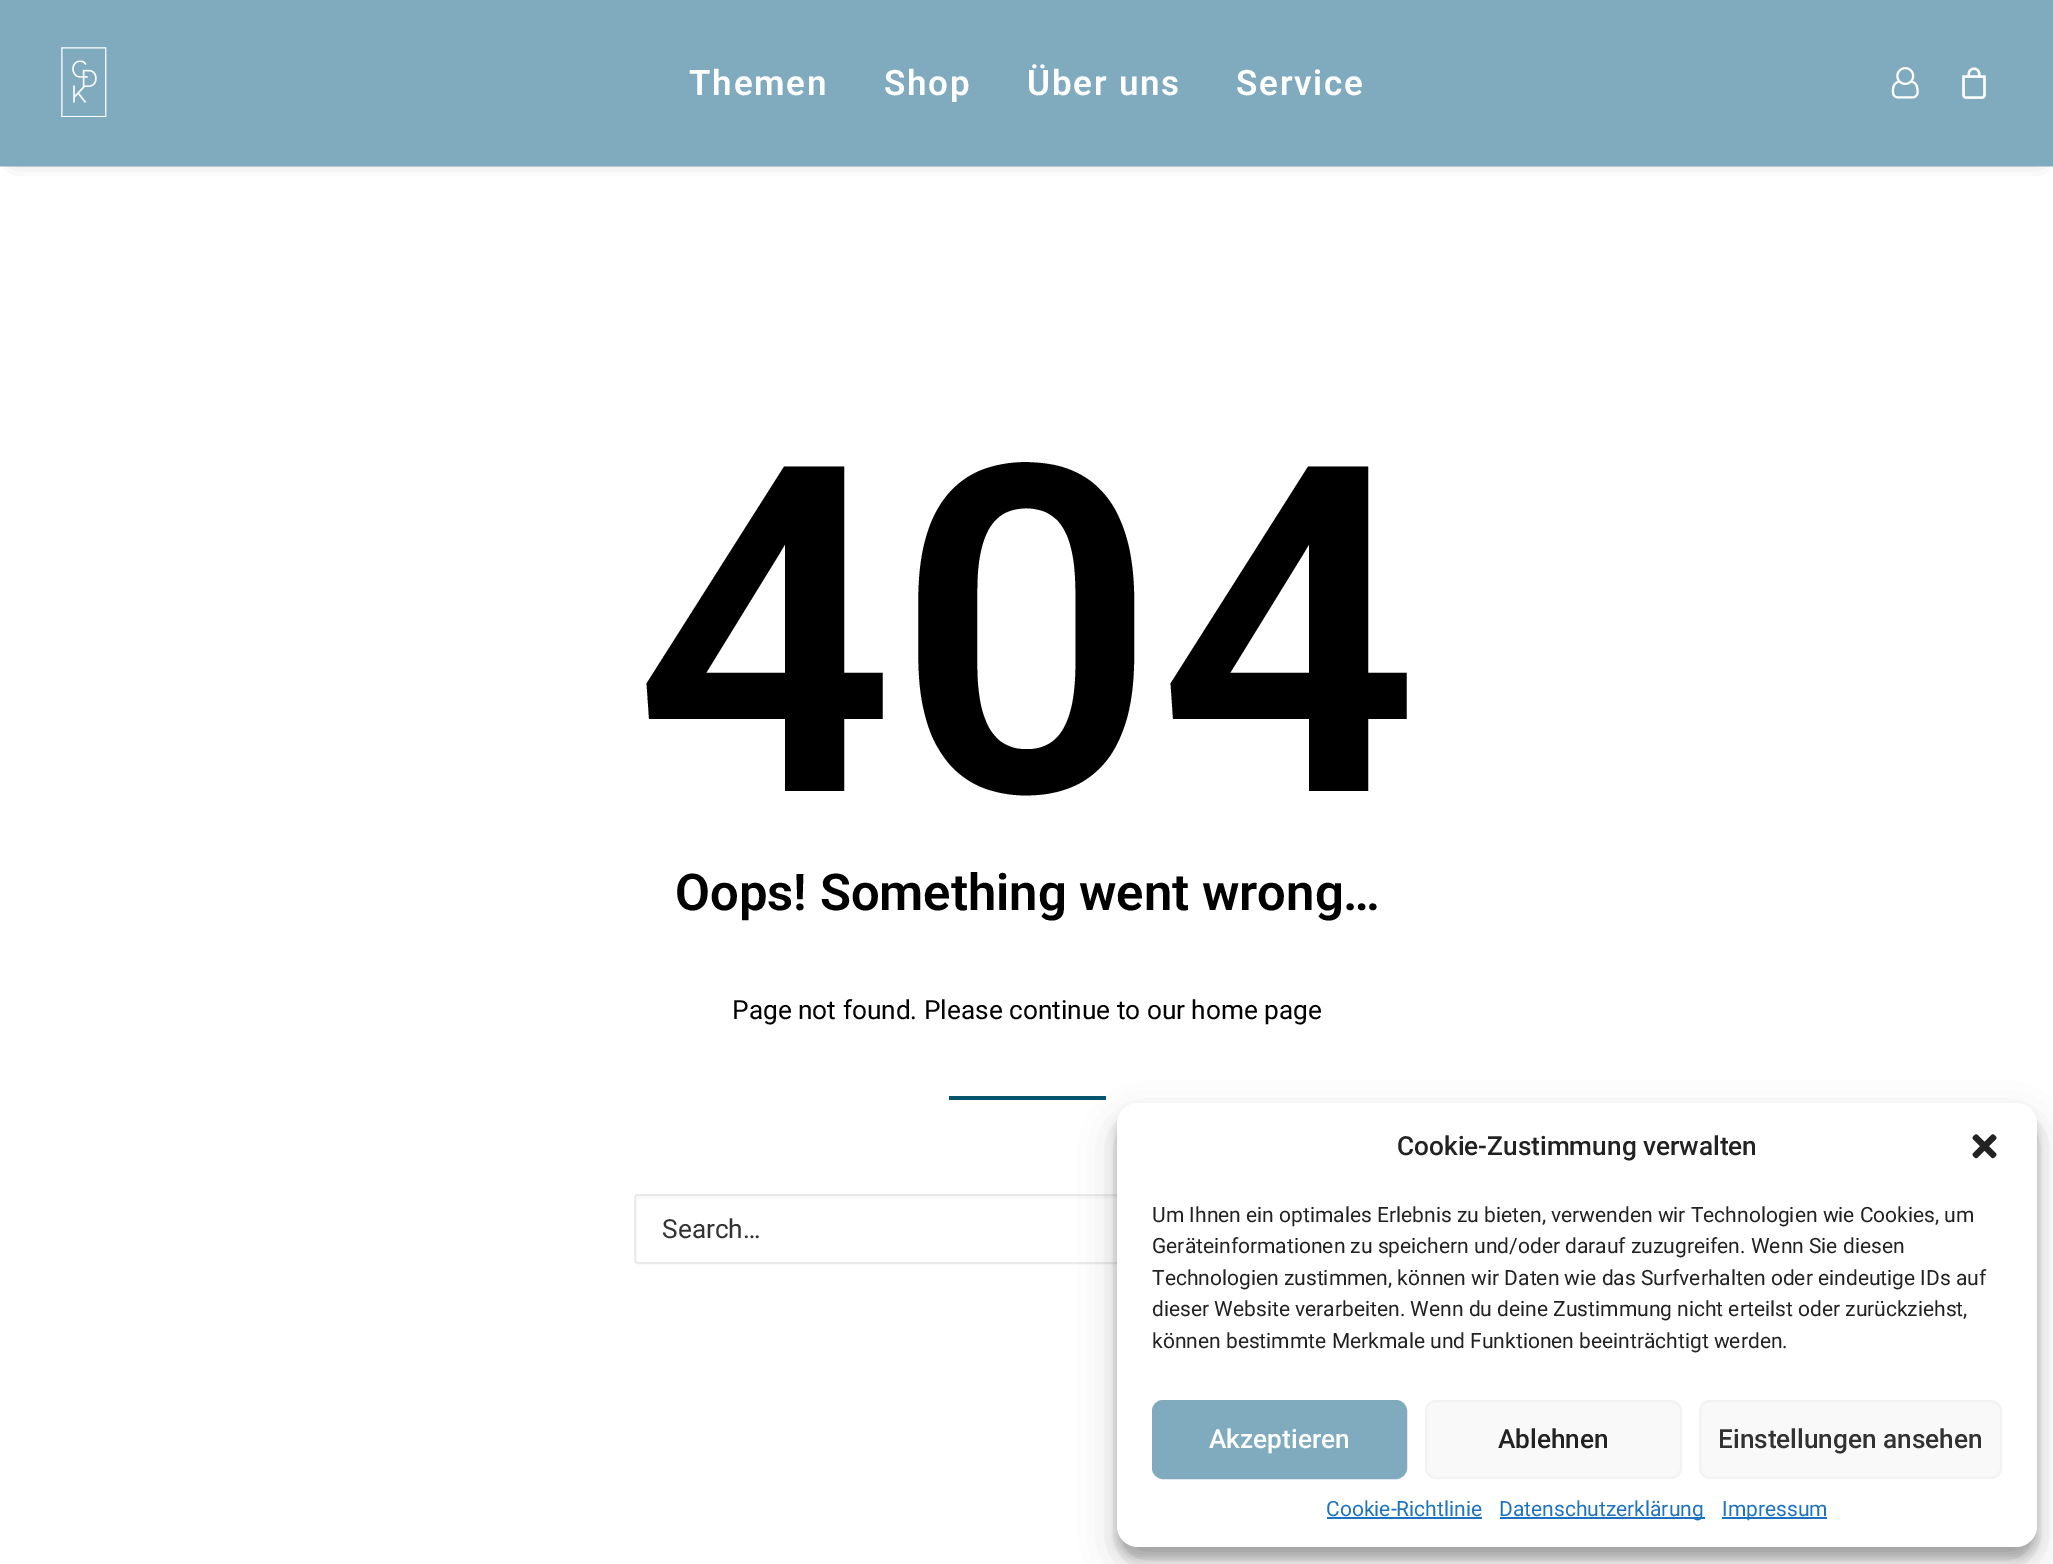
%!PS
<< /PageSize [2053 1564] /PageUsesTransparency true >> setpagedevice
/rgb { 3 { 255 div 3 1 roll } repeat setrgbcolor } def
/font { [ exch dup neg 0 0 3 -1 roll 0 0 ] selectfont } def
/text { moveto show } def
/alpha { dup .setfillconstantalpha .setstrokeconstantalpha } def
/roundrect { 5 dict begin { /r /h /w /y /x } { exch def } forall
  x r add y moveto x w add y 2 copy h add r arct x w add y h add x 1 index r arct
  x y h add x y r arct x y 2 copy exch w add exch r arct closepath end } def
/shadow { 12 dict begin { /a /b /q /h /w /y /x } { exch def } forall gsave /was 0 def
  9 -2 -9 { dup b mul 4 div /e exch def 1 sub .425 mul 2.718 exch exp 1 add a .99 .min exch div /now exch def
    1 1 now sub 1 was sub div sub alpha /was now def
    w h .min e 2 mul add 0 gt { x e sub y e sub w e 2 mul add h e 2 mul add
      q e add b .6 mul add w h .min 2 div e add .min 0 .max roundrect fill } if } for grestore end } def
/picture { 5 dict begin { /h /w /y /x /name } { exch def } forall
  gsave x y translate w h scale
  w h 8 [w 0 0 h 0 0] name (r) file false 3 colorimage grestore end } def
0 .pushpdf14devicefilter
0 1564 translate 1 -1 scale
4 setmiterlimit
255 255 255 rgb
0 0 2053 1564 rectfill
0 0 0 rgb
16 25 2023 131 0 9 0.6 shadow
128 171 191 rgb
0 0 2053 166 rectfill
0.5 alpha
0 166 2053 1 rectfill
1 alpha
(img_01.rgb) 61 47 46 70 picture
(img_02.rgb) 1891 67 28 32 picture
(img_03.rgb) 1962 67 24 32 picture
8 84 108 rgb
949 1096 157 4 rectfill
249 249 249 rgb
637 1199 moveto 781 0 rlineto 1 1 rlineto 0 -4 rlineto -1 -1 rlineto -781 0 rlineto -3 0 -2 3 -2 5 rcurveto closepath fill
234 234 234 rgb
2 setlinewidth
635 1195 785 68 3 roundrect stroke
0 0 0 rgb
1117 1113 920 445 21 5 0.23 shadow
1117 1120 920 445 21 17.5 0.19 shadow
255 255 255 rgb
1117 1103 920 444 21 roundrect fill
(img_04.rgb) 1972 1134 25 25 picture
128 171 191 rgb
1153 1401 253 77 10 roundrect gsave fill grestore
stroke
249 249 249 rgb
1426 1401 255 77 10 roundrect gsave fill grestore
242 242 242 rgb
stroke
249 249 249 rgb
1700 1401 301 77 10 roundrect gsave fill grestore
242 242 242 rgb
stroke
30 115 190 rgb
1327 1517 155 2 rectfill
1500 1517 205 2 rectfill
1722 1517 105 2 rectfill
/Roboto-SemiBold 35 font
255 255 255 rgb
689 95 moveto 1.75 0 (Themen) ashow
884 95 moveto 1.75 0 (Shop) ashow
1027 95 moveto 1.75 0 (Über uns) ashow
1236 95 moveto 1.75 0 (Service) ashow
/Roboto-SemiBold 459 font
0 0 0 rgb
(404) 634 791 text
/Roboto-SemiBold 50.75 font
(Oops! Something went wrong…) 675 910 text
/Roboto-Regular 26.25 font
(Page not found. Please continue to our home page) 732 1019 text
50 50 50 rgb
(Search…) 662 1238 text
/Roboto-Medium 26.25 font
34 34 34 rgb
(Cookie-Zustimmung verwalten) 1397 1155 text
/Roboto-Regular 21 font
(Um Ihnen ein optimales Erlebnis zu bieten, verwenden wir Technologien wie Cookies, um) 1152 1222 text
(Geräteinformationen zu speichern und/oder darauf zuzugreifen. Wenn Sie diesen) 1152 1253 text
(Technologien zustimmen, können wir Daten wie das Surfverhalten oder eindeutige IDs auf) 1152 1285 text
(dieser Website verarbeiten. Wenn du deine Zustimmung nicht erteilst oder zurückziehst,) 1152 1316 text
(können bestimmte Merkmale und Funktionen beeinträchtigt werden.) 1152 1348 text
/Roboto-Medium 26.25 font
255 255 255 rgb
(Akzeptieren) 1209 1448 text
34 34 34 rgb
(Ablehnen) 1498 1448 text
50 50 50 rgb
(Einstellungen ansehen) 1718 1448 text
/Roboto-Regular 21 font
30 115 190 rgb
(Cookie-Richtlinie) 1326 1516 text
(Datenschutzerklärung) 1499 1516 text
(Impressum) 1722 1516 text
.poppdf14devicefilter showpage
